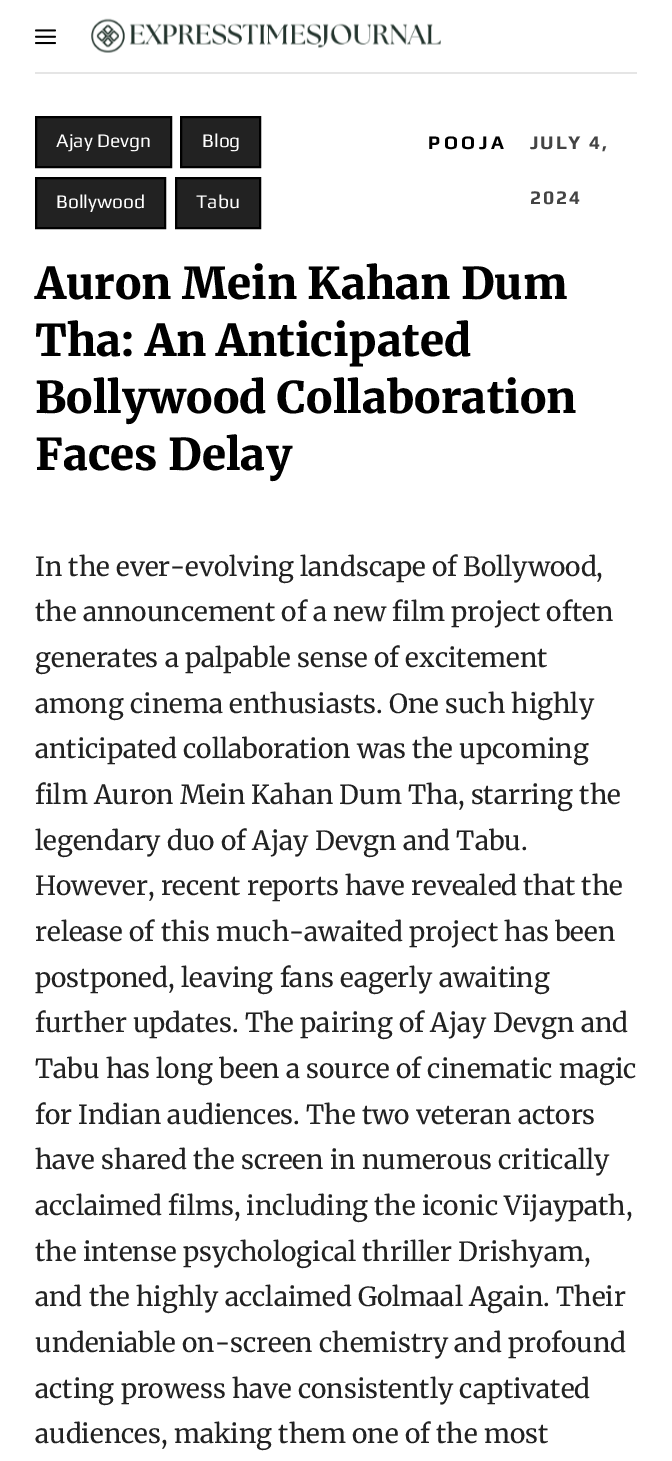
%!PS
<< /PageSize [672 1461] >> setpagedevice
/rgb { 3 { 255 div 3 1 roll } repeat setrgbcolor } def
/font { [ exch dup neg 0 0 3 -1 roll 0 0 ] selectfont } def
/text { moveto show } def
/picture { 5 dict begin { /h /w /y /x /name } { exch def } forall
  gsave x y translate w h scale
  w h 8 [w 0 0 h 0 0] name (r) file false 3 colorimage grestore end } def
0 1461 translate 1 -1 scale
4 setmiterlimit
255 255 255 rgb
0 0 672 1461 rectfill
229 229 229 rgb
35 72 602 2 rectfill
(img_01.rgb) 35 29 21 16 picture
(img_02.rgb) 91 18 350 35 picture
34 34 34 rgb
36 117 moveto 135 0 rlineto 0 50 rlineto -135 0 rlineto closepath gsave fill grestore
0 0 0 rgb
2 setlinewidth
stroke
34 34 34 rgb
181 117 moveto 79 0 rlineto 0 50 rlineto -79 0 rlineto closepath gsave fill grestore
0 0 0 rgb
stroke
34 34 34 rgb
36 178 moveto 129 0 rlineto 0 50 rlineto -129 0 rlineto closepath gsave fill grestore
0 0 0 rgb
stroke
34 34 34 rgb
176 178 moveto 84 0 rlineto 0 50 rlineto -84 0 rlineto closepath gsave fill grestore
0 0 0 rgb
stroke
/Play-Regular 19.25 font
255 255 255 rgb
(Ajay Devgn) 56 147 text
(Blog) 202 147 text
(Bollywood) 56 208 text
(Tabu) 196 208 text
/Play-Bold 19.25 font
0 0 0 rgb
428 149 moveto 3.5 0 (POOJA) ashow
68 68 68 rgb
530 149 moveto 1.75 0 (JULY 4,) ashow
530 204 moveto 1.75 0 (2024) ashow
/Merriweather-Black 43.75 font
0 0 0 rgb
(Auron Mein Kahan Dum) 35 299 text
(Tha: An Anticipated) 35 356 text
(Bollywood Collaboration) 35 413 text
(Faces Delay) 35 470 text
/Merriweather-Regular 26.25 font
34 34 34 rgb
(In the ever-evolving landscape of Bollywood,) 35 576 text
(the announcement of a new film project often) 35 621 text
(generates a palpable sense of excitement) 35 667 text
(among cinema enthusiasts. One such highly) 35 713 text
(anticipated collaboration was the upcoming) 35 758 text
(film Auron Mein Kahan Dum Tha, starring the) 35 804 text
(legendary duo of Ajay Devgn and Tabu.) 35 850 text
(However, recent reports have revealed that the) 35 895 text
(release of this much-awaited project has been) 35 941 text
(postponed, leaving fans eagerly awaiting) 35 987 text
(further updates. The pairing of Ajay Devgn and) 35 1032 text
(Tabu has long been a source of cinematic magic) 35 1078 text
(for Indian audiences. The two veteran actors) 35 1124 text
(have shared the screen in numerous critically) 35 1169 text
(acclaimed films, including the iconic Vijaypath,) 35 1215 text
(the intense psychological thriller Drishyam,) 35 1261 text
(and the highly acclaimed Golmaal Again. Their) 35 1306 text
(undeniable on-screen chemistry and profound) 35 1352 text
(acting prowess have consistently captivated) 35 1398 text
(audiences, making them one of the most) 35 1443 text
showpage
